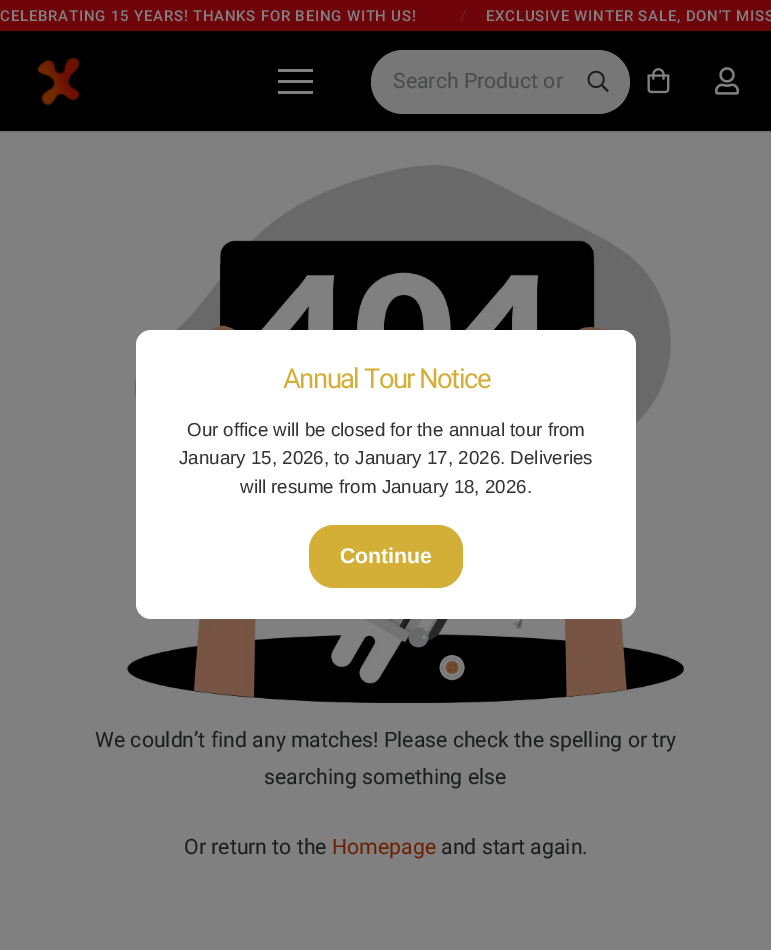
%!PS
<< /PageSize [771 950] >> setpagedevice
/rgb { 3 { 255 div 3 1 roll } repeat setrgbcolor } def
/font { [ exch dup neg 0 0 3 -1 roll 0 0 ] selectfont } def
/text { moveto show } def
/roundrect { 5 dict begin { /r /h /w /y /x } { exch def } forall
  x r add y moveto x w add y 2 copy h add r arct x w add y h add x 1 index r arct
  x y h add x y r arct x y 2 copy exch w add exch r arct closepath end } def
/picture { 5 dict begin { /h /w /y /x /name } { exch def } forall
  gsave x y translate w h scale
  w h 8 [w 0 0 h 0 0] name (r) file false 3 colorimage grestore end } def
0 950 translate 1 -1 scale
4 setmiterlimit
128 128 128 rgb
0 0 771 950 rectfill
111 4 10 rgb
0 0 771 31 rectfill
118 118 118 rgb
0 131 771 2 rectfill
0 0 0 rgb
0 31 771 100 rectfill
(img_01.rgb) 37 57 43 49 picture
128 128 128 rgb
278 80 35 3 rectfill
278 69 35 3 rectfill
278 91 35 3 rectfill
119 119 119 rgb
371 50 259 64 32 roundrect fill
(img_02.rgb) 587 70 22 22 picture
(img_03.rgb) 647 68 23 26 picture
(img_04.rgb) 715 67 25 28 picture
(img_05.rgb) 127 164 558 539 picture
255 255 255 rgb
136 330 500 289 15 roundrect fill
212 175 55 rgb
309 525 154 63 25 roundrect fill
/Roboto-Medium 15 font
128 128 128 rgb
0 21 moveto 0.75 0 (CELEBRATING 15 YEARS! THANKS FOR BEING WITH US!) ashow
/Roboto-Light 16 font
117 47 51 rgb
(/) 460 21 text
/Roboto-Medium 15 font
128 128 128 rgb
486 21 moveto 0.75 0 (EXCLUSIVE WINTER SALE, DON'T MISS) ashow
/Roboto-Regular 21.25 font
73 74 74 rgb
(Search Product or) 393 88 text
27 28 28 rgb
(We couldn’t find any matches! Please check the spelling or try) 95 747 text
(searching something else) 264 784 text
(Or return to the) 184 854 text
107 33 1 rgb
(Homepage) 332 854 text
27 28 28 rgb
(and start again.) 441 854 text
/Roboto-Regular 27.5 font
212 175 55 rgb
283 388 moveto -1.6 0 (Annual Tour Notice) ashow
/LiberationSans-Regular 18.75 font
51 51 51 rgb
(Our office will be closed for the annual tour from) 187 436 text
(January 15, 2026, to January 17, 2026. Deliveries) 179 464 text
(will resume from January 18, 2026.) 240 493 text
/LiberationSans-Bold 21.25 font
255 255 255 rgb
(Continue) 340 563 text
showpage
